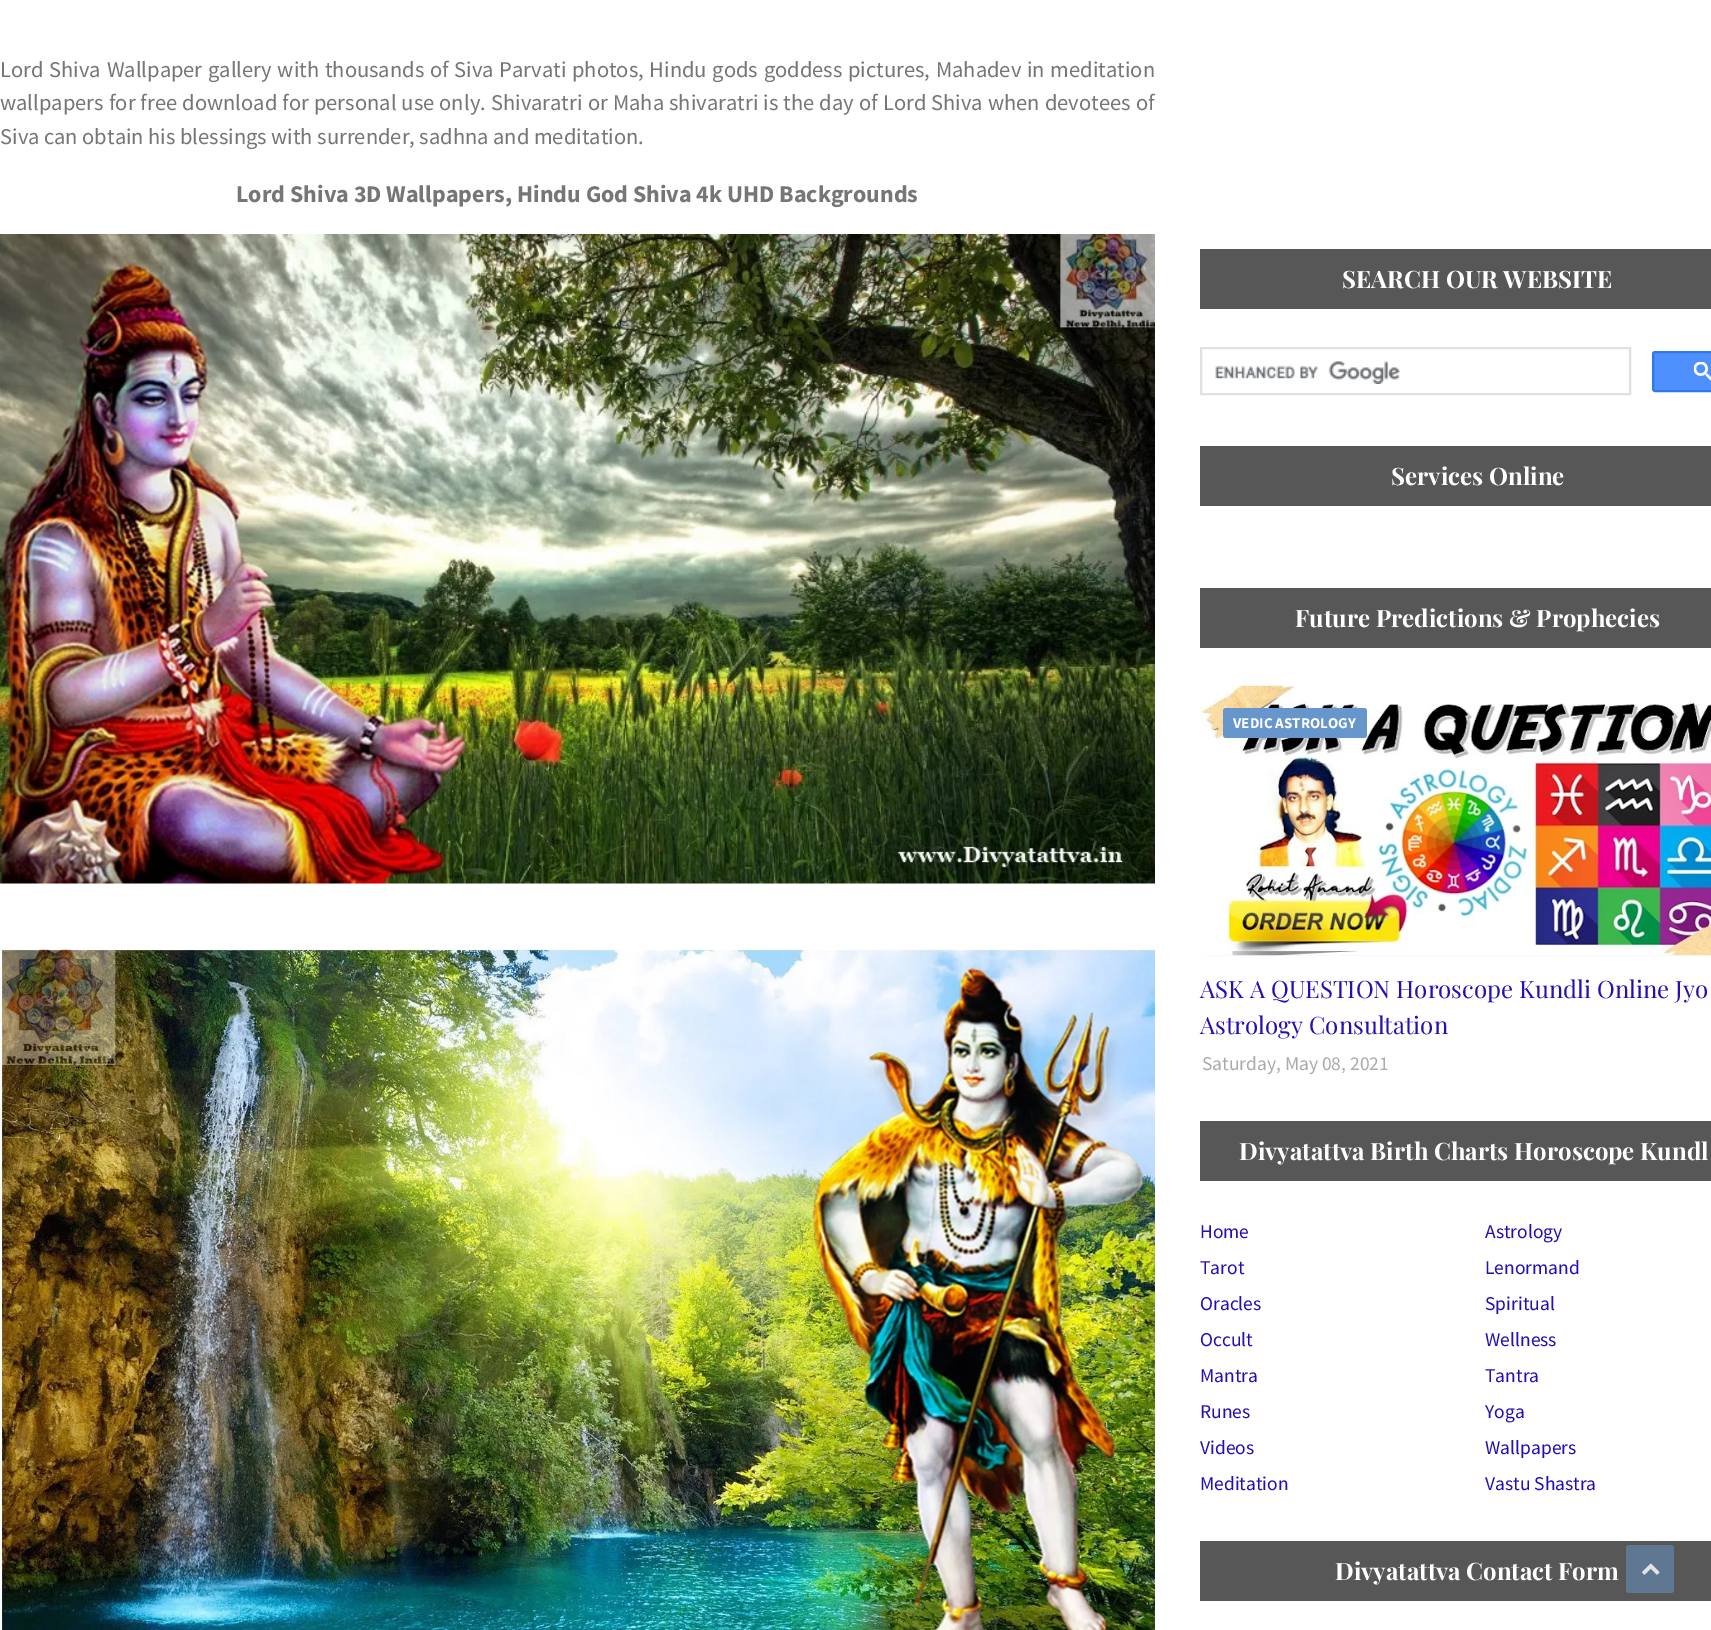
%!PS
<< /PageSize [1711 1630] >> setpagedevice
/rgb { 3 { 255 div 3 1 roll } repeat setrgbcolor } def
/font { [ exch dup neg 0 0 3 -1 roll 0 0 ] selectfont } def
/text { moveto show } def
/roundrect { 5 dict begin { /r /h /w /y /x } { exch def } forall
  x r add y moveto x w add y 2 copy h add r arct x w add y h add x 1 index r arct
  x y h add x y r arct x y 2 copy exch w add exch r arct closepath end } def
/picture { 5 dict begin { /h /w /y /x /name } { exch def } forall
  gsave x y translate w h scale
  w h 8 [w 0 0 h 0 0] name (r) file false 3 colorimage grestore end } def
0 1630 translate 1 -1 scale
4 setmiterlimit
255 255 255 rgb
0 0 1711 1630 rectfill
(img_01.rgb) 0 234 1155 650 picture
(img_02.rgb) 0 949 1155 681 picture
87 87 87 rgb
1200 249 511 60 rectfill
223 225 229 rgb
2 setlinewidth
1201 348 429 46 rectstroke
(img_03.rgb) 1215 361 185 23 picture
77 144 254 rgb
1653 352 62 39 2 roundrect gsave fill grestore
48 121 237 rgb
stroke
(img_04.rgb) 1694 362 17 19 picture
87 87 87 rgb
1200 446 511 60 rectfill
1200 588 511 60 rectfill
248 248 248 rgb
1200 686 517 270 6 roundrect fill
(img_05.rgb) 1200 685 511 271 picture
102 150 203 rgb
1223 708 144 30 3 roundrect fill
87 87 87 rgb
1200 1121 511 60 rectfill
1200 1541 511 60 rectfill
95 119 145 rgb
1626 1545 48 48 3 roundrect fill
(img_06.rgb) 1642 1563 18 12 picture
/SourceSansPro-Regular 22.5 font
118 118 118 rgb
0 77 moveto 1.25 0 32 (Lord Shiva Wallpaper gallery with thousands of Siva Parvati photos, Hindu gods goddess pictures, Mahadev in meditation) widthshow
0 110 moveto 0.6 0 32 (wallpapers for free download for personal use only. Shivaratri or Maha shivaratri is the day of Lord Shiva when devotees of) widthshow
(Siva can obtain his blessings with surrender, sadhna and meditation.) 0 144 text
/SourceSansPro-Bold 24 font
(Lord Shiva 3D Wallpapers, Hindu God Shiva 4k UHD Backgrounds) 236 202 text
/PlayfairDisplay-Bold 24 font
255 255 255 rgb
(SEARCH OUR WEBSITE) 1342 288 text
(Services Online) 1391 485 text
(Future Predictions & Prophecies) 1295 627 text
/SourceSansPro-Bold 15 font
(VEDIC ASTROLOGY) 1233 728 text
/PlayfairDisplay-Regular 24 font
34 15 182 rgb
(ASK A QUESTION Horoscope Kundli Online Jyo) 1200 998 text
(Astrology Consultation) 1200 1034 text
/SourceSansPro-Regular 19.5 font
170 170 170 rgb
(Saturday, May 08, 2021) 1202 1070 text
/PlayfairDisplay-Bold 24 font
255 255 255 rgb
(Divyatattva Birth Charts Horoscope Kundl) 1239 1160 text
/SourceSansPro-Regular 19.5 font
34 15 182 rgb
(Home) 1200 1238 text
(Astrology) 1485 1238 text
(Tarot) 1200 1274 text
(Lenormand) 1485 1274 text
(Oracles) 1200 1310 text
(Spiritual) 1485 1310 text
(Occult) 1200 1346 text
(Wellness) 1485 1346 text
(Mantra) 1200 1382 text
(Tantra) 1485 1382 text
(Runes) 1200 1418 text
(Yoga) 1485 1418 text
(Videos) 1200 1454 text
(Wallpapers) 1485 1454 text
(Meditation) 1200 1490 text
(Vastu Shastra) 1485 1490 text
/PlayfairDisplay-Bold 24 font
255 255 255 rgb
(Divyatattva Contact Form) 1335 1580 text
showpage
